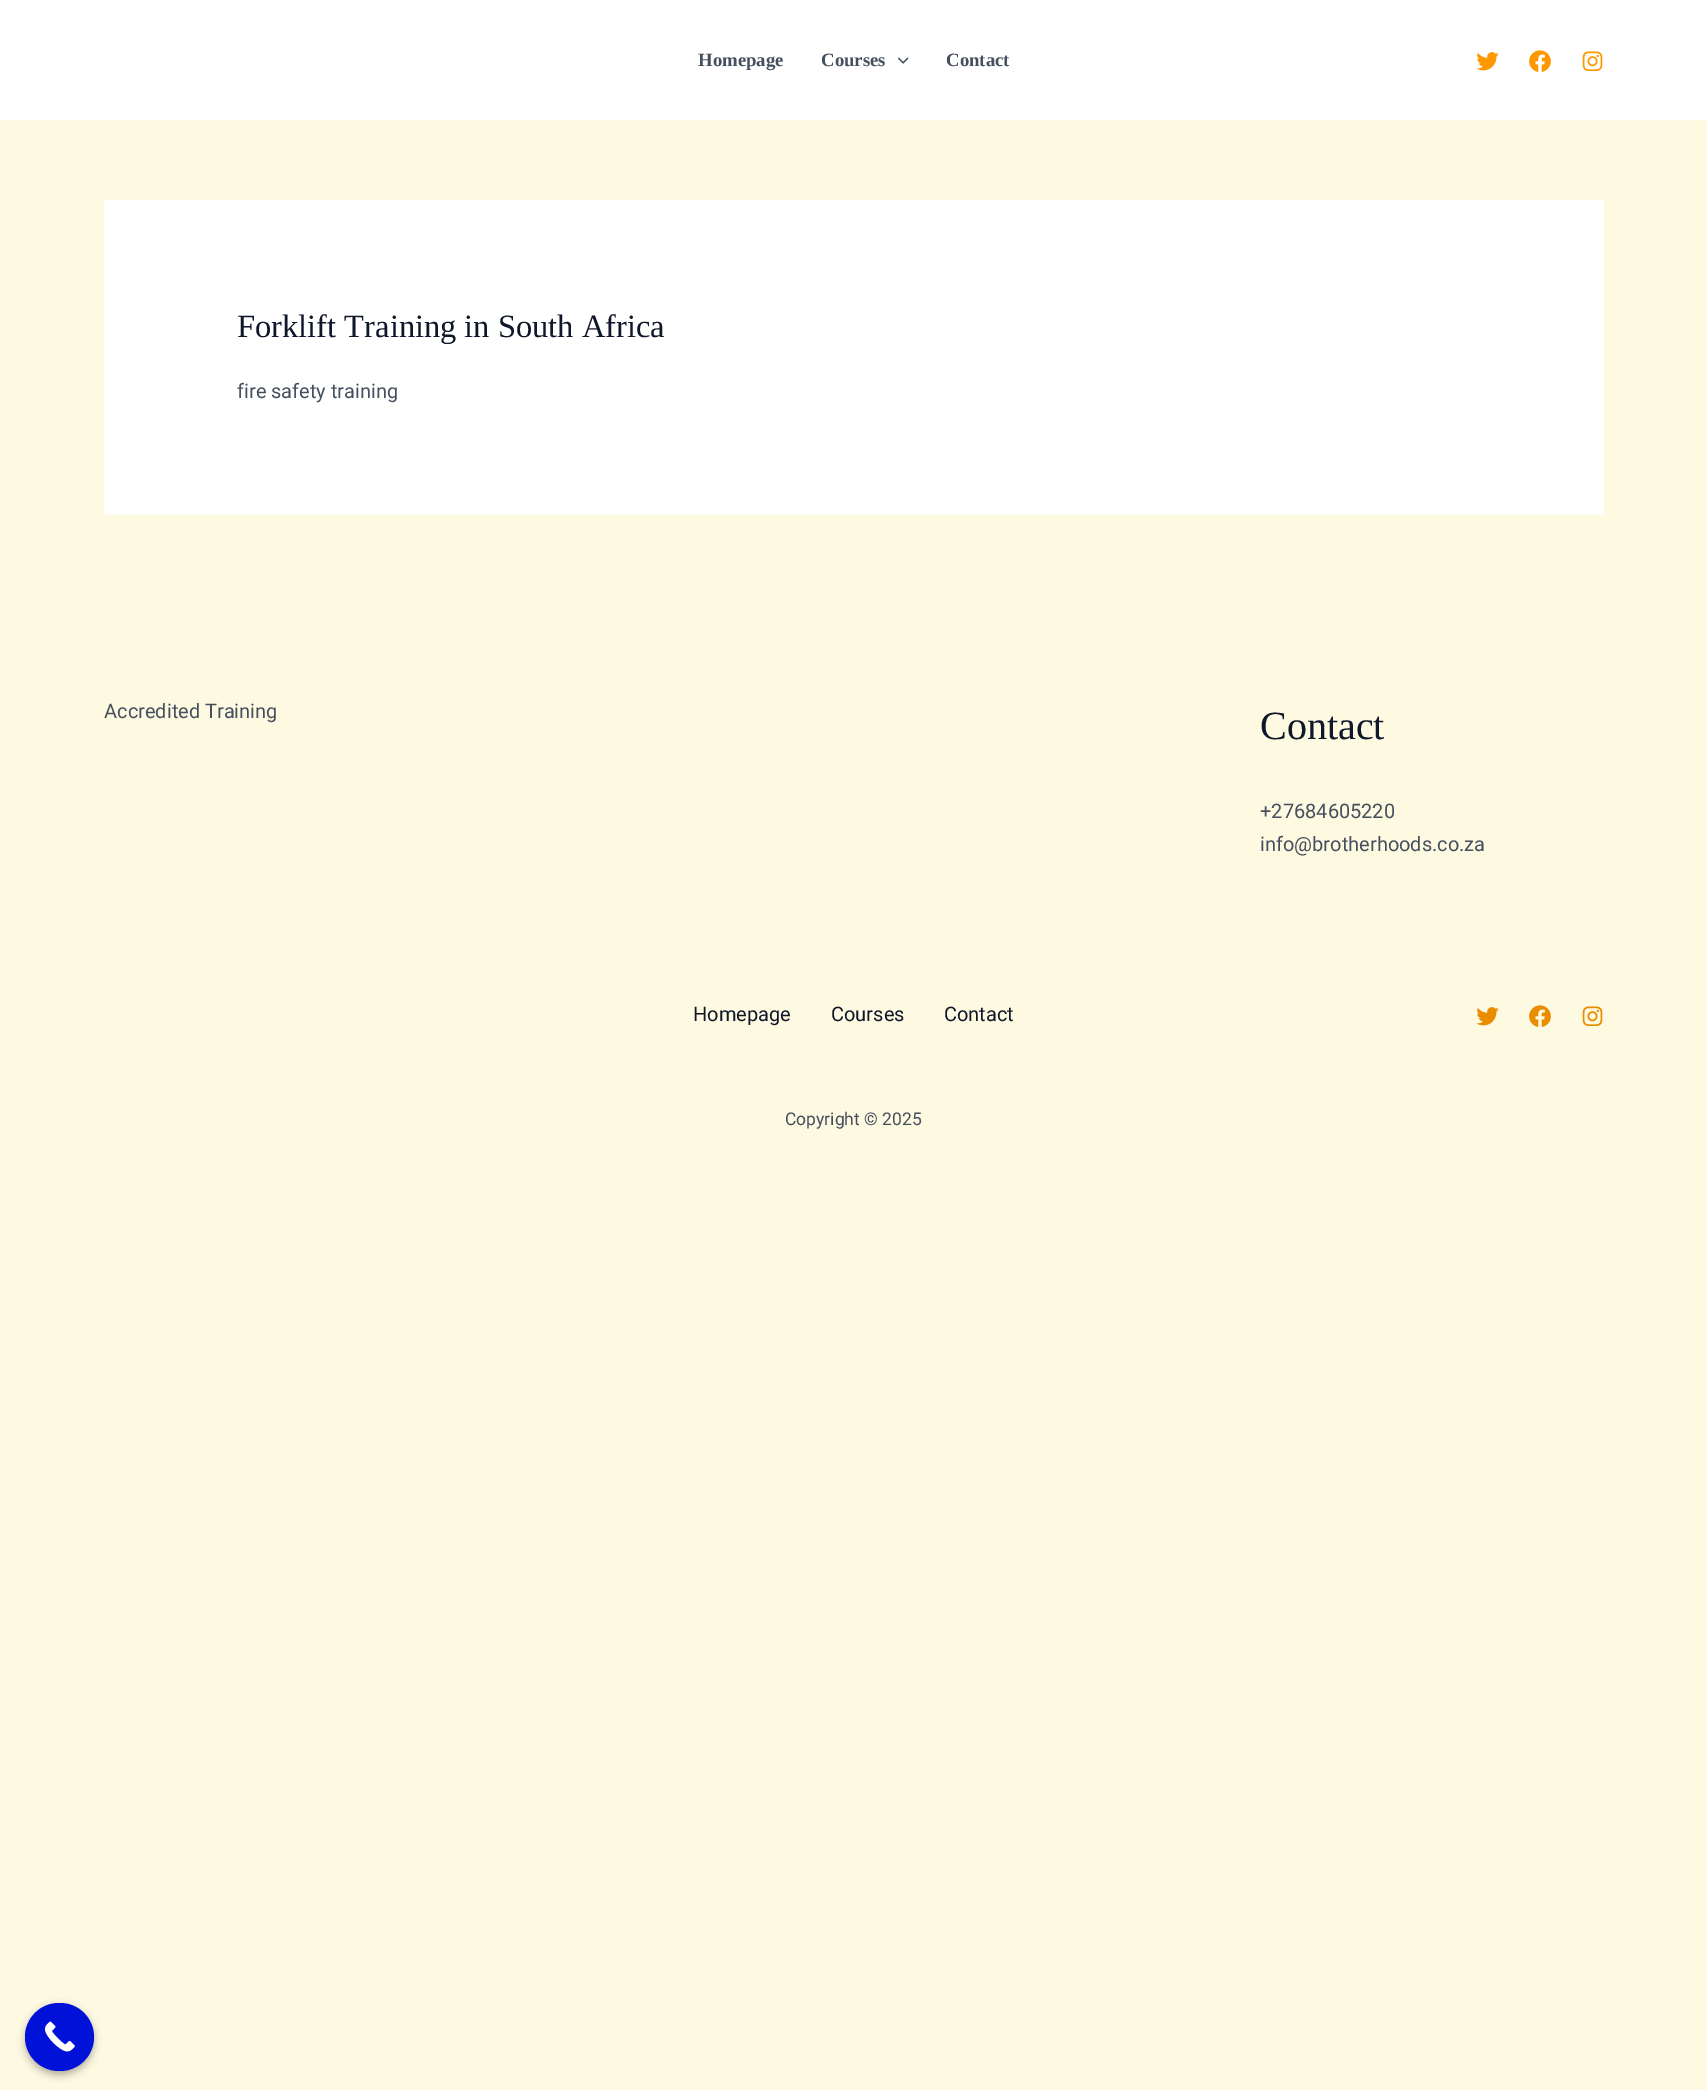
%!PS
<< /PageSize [1707 2090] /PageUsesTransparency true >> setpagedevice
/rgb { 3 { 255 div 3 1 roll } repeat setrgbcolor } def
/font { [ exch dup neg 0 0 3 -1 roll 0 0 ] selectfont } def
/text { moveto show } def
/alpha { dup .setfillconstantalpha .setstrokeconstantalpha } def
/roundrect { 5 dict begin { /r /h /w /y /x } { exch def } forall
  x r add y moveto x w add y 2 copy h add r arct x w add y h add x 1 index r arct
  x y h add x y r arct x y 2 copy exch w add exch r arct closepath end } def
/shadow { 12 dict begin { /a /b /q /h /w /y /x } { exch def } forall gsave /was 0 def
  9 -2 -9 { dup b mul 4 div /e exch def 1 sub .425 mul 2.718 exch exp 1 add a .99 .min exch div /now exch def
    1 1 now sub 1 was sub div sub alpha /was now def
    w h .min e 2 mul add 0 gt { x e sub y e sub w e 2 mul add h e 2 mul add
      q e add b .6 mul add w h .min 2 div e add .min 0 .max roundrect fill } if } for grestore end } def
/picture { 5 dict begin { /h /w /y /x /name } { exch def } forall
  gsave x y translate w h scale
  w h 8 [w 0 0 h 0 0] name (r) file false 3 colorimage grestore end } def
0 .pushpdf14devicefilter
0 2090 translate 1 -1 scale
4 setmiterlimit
254 249 225 rgb
0 0 1707 2090 rectfill
255 255 255 rgb
0 0 1707 120 rectfill
(img_01.rgb) 898 57 11 7 picture
(img_02.rgb) 1476 52 23 19 picture
(img_03.rgb) 1529 50 22 22 picture
(img_04.rgb) 1582 51 21 20 picture
104 200 1500 315 rectfill
(img_05.rgb) 1476 1007 23 19 picture
(img_06.rgb) 1529 1005 22 22 picture
(img_07.rgb) 1582 1006 21 20 picture
0 0 0 rgb
25 2006 69 69 34.5 4 0.3 shadow
0 18 216 rgb
25 2003 69 68 34 roundrect fill
(img_08.rgb) 44 2021 31 31 picture
/LiberationSerif-Bold 18.75 font
69 79 94 rgb
(Homepage) 698 66 text
(Courses) 821 66 text
(Contact) 946 66 text
/LiberationSerif-Regular 32.5 font
15 23 42 rgb
(Forklift Training in South Africa) 237 337 text
/Roboto-Regular 20 font
69 79 94 rgb
(fire safety training) 237 398 text
(Accredited Training) 104 718 text
/LiberationSerif-Regular 40 font
15 23 42 rgb
(Contact) 1260 739 text
/Roboto-Regular 20 font
69 79 94 rgb
(+27684605220) 1260 818 text
(info@brotherhoods.co.za) 1260 851 text
15 23 42 rgb
(Homepage) 693 1021 text
(Courses) 831 1021 text
(Contact) 944 1021 text
/Roboto-Regular 17.5 font
69 79 94 rgb
(Copyright © 2025) 785 1125 text
.poppdf14devicefilter showpage
